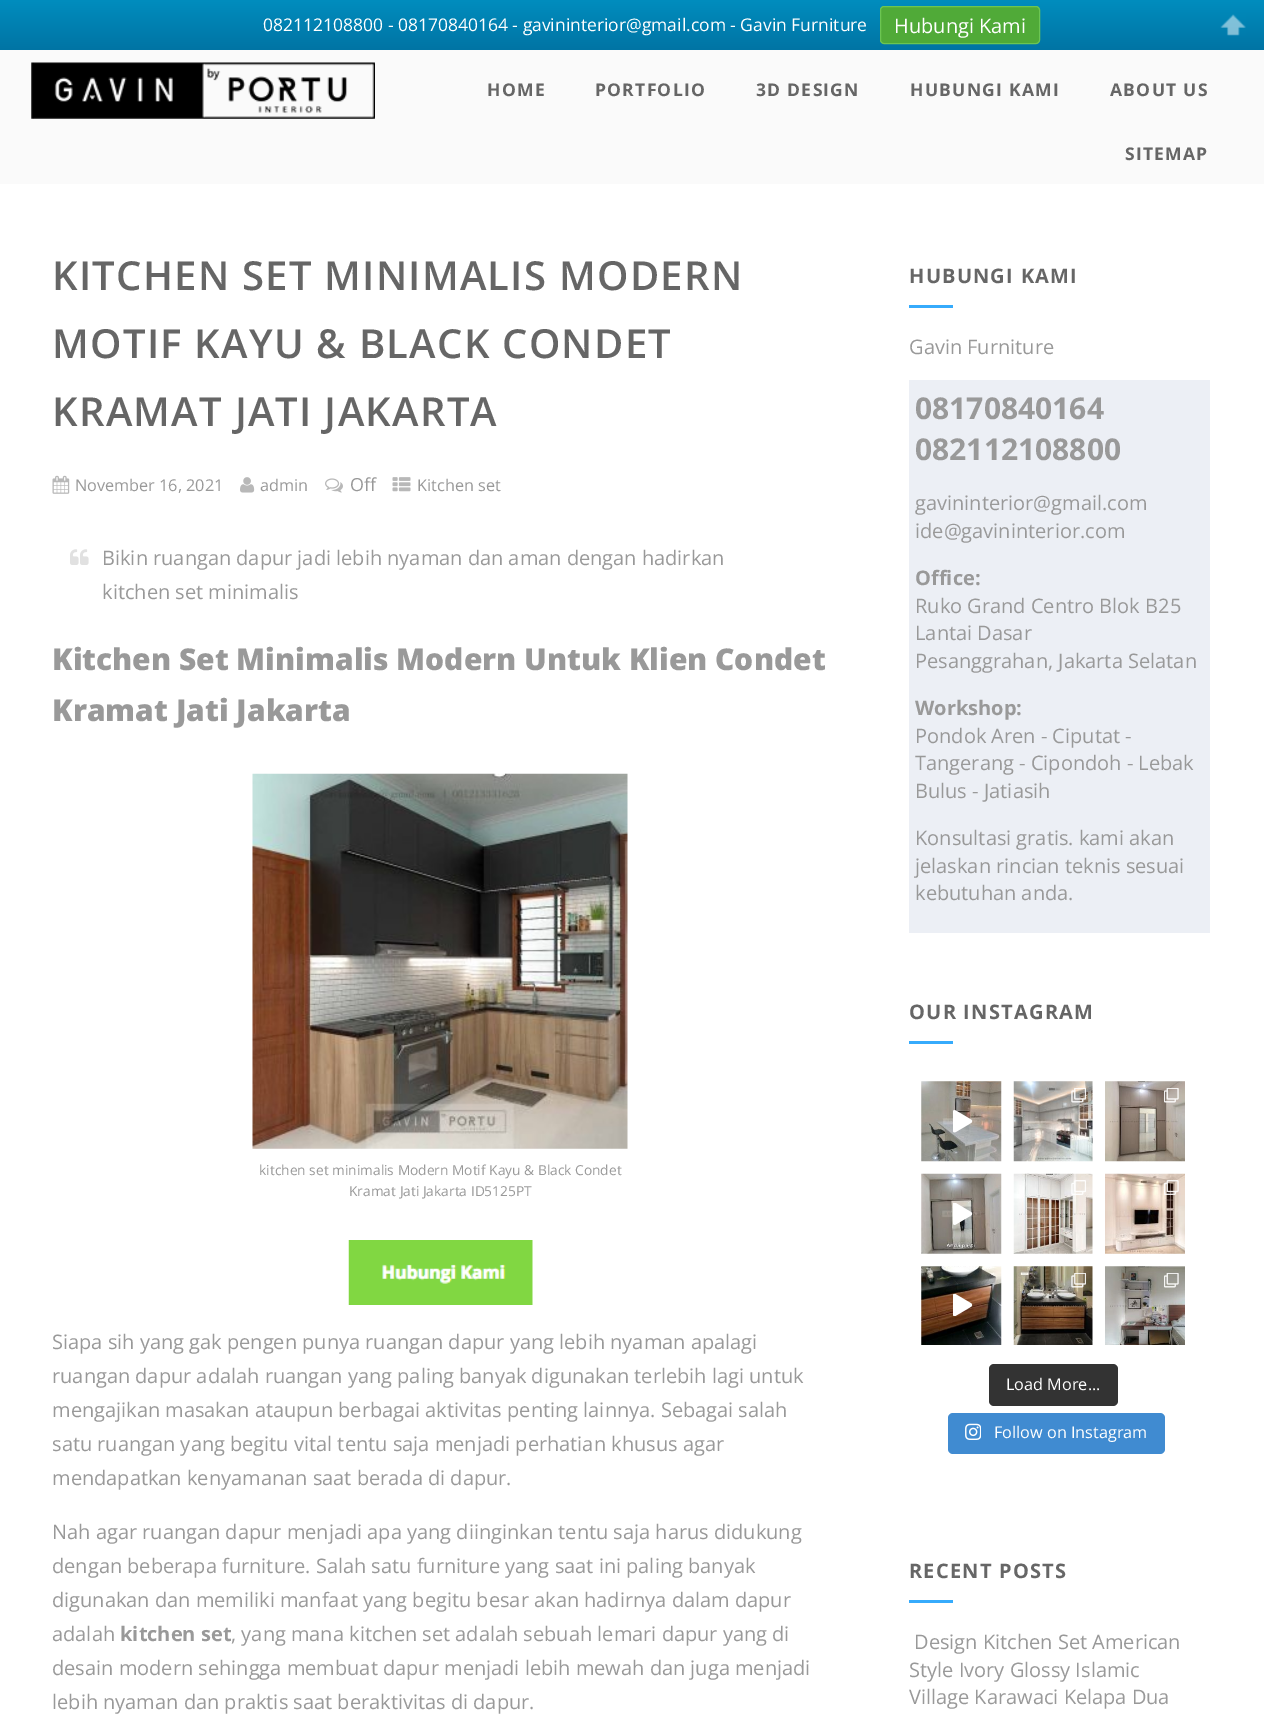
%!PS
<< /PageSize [1264 1725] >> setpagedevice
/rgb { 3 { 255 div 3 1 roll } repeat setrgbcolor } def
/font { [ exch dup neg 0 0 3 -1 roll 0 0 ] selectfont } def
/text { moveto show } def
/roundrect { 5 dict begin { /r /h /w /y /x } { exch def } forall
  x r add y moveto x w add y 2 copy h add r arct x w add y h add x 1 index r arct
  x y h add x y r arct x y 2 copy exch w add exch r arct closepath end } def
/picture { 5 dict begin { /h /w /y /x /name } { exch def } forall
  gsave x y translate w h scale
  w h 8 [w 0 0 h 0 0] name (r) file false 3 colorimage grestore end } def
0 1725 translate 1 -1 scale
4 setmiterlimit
255 255 255 rgb
0 0 1264 1725 rectfill
gsave 0 0 moveto 1264 0 rlineto 0 50 rlineto -1264 0 rlineto closepath clip newpath
<< /ShadingType 2 /ColorSpace /DeviceRGB /Coords [633 0 633 50] /Extend [true true] /Function << /FunctionType 2 /Domain [0 1] /C0 [0 0.553 0.745] /C1 [0 0.455 0.643] /N 1 >> >> shfill grestore
80 170 56 rgb
880.5 6.5 159 37 3.5 roundrect gsave fill grestore
108 197 82 rgb
stroke
(img_01.rgb) 1220 14 26 22 picture
250 250 250 rgb
0 50 1264 134 rectfill
(img_02.rgb) 31 62 344 57 picture
(img_03.rgb) 52 475 18 19 picture
(img_04.rgb) 240 477 15 16 picture
(img_05.rgb) 325 478 18 15 picture
(img_06.rgb) 392 477 19 15 picture
(img_07.rgb) 70 549 19 16 picture
(img_08.rgb) 252 773 376 376 picture
(img_09.rgb) 348 1240 185 65 picture
54 171 252 rgb
909 305 44 3 rectfill
236 239 245 rgb
909 380 301 553 rectfill
54 171 252 rgb
909 1041 44 3 rectfill
(img_10.rgb) 921 1081 81 81 picture
(img_11.rgb) 953 1110 20 23 picture
(img_12.rgb) 1013 1081 80 81 picture
(img_13.rgb) 1071 1088 15 15 picture
(img_14.rgb) 1105 1081 80 81 picture
(img_15.rgb) 1164 1088 15 15 picture
(img_16.rgb) 921 1173 81 81 picture
(img_17.rgb) 953 1203 20 22 picture
(img_18.rgb) 1013 1173 80 81 picture
(img_19.rgb) 1071 1180 15 15 picture
(img_20.rgb) 1105 1173 80 81 picture
(img_21.rgb) 1164 1180 15 15 picture
(img_22.rgb) 921 1266 81 79 picture
(img_23.rgb) 953 1294 20 22 picture
(img_24.rgb) 1013 1266 80 79 picture
(img_25.rgb) 1071 1273 15 15 picture
(img_26.rgb) 1105 1266 80 79 picture
(img_27.rgb) 1164 1273 15 15 picture
51 51 51 rgb
989 1364 129 42 5 roundrect fill
64 139 209 rgb
948 1413 217 41 5 roundrect fill
(img_28.rgb) 965 1423 16 17 picture
54 171 252 rgb
909 1600 44 3 rectfill
/OpenSans-Regular 17.5 font
255 255 255 rgb
(082112108800 - 08170840164 - gavininterior@gmail.com - Gavin Furniture) 263 31 text
/OpenSans-Regular 20 font
(Hubungi Kami) 894 33 text
/OpenSans-Bold 17.5 font
102 102 102 rgb
487 96 moveto 1.25 0 (HOME) ashow
595 96 moveto 1.25 0 (PORTFOLIO) ashow
756 96 moveto 1.25 0 (3D DESIGN) ashow
910 96 moveto 1.25 0 (HUBUNGI KAMI) ashow
1110 96 moveto 1.25 0 (ABOUT US) ashow
1125 160 moveto 1.25 0 (SITEMAP) ashow
/OpenSans-SemiBold 40 font
52 290 moveto 1.25 0 (KITCHEN SET MINIMALIS MODERN) ashow
52 358 moveto 1.25 0 (MOTIF KAYU & BLACK CONDET) ashow
52 426 moveto 1.25 0 (KRAMAT JATI JAKARTA) ashow
/OpenSans-Regular 16.25 font
153 153 153 rgb
(November 16, 2021) 75 491 text
(admin) 260 491 text
/OpenSans-Regular 18 font
(Off) 350 491 text
/OpenSans-Regular 16.25 font
(Kitchen set) 417 491 text
/OpenSans-Regular 20 font
(Bikin ruangan dapur jadi lebih nyaman dan aman dengan hadirkan) 102 565 text
(kitchen set minimalis) 102 599 text
/OpenSans-ExtraBold 30 font
(Kitchen Set Minimalis Modern Untuk Klien Condet) 52 670 text
(Kramat Jati Jakarta) 52 721 text
/OpenSans-Regular 13.75 font
(kitchen set minimalis Modern Motif Kayu & Black Condet) 259 1175 text
(Kramat Jati Jakarta ID5125PT) 349 1196 text
/OpenSans-Regular 20 font
(Siapa sih yang gak pengen punya ruangan dapur yang lebih nyaman apalagi) 52 1349 text
(ruangan dapur adalah ruangan yang paling banyak digunakan terlebih lagi untuk) 52 1383 text
(mengajikan masakan ataupun berbagai aktivitas penting lainnya. Sebagai salah) 52 1417 text
(satu ruangan yang begitu vital tentu saja menjadi perhatian khusus agar) 52 1451 text
(mendapatkan kenyamanan saat berada di dapur.) 52 1485 text
(Nah agar ruangan dapur menjadi apa yang diinginkan tentu saja harus didukung) 52 1539 text
(dengan beberapa furniture. Salah satu furniture yang saat ini paling banyak) 52 1573 text
(digunakan dan memiliki manfaat yang begitu besar akan hadirnya dalam dapur) 52 1607 text
(adalah) 52 1641 text
/OpenSans-Bold 20 font
(kitchen set) 120 1641 text
/OpenSans-Regular 20 font
(, yang mana kitchen set adalah sebuah lemari dapur yang di) 231 1641 text
(desain modern sehingga membuat dapur menjadi lebih mewah dan juga menjadi) 52 1675 text
(lebih nyaman dan praktis saat beraktivitas di dapur.) 52 1709 text
/OpenSans-Bold 20 font
102 102 102 rgb
909 283 moveto 1.25 0 (HUBUNGI KAMI) ashow
/OpenSans-Regular 20 font
153 153 153 rgb
(Gavin Furniture) 909 354 text
/OpenSans-Bold 30 font
(08170840164) 915 419 text
(082112108800) 915 460 text
/OpenSans-Regular 20 font
(gavininterior@gmail.com) 915 510 text
(ide@gavininterior.com) 915 538 text
/OpenSans-Bold 20 font
(Office:) 915 585 text
/OpenSans-Regular 20 font
(Ruko Grand Centro Blok B25) 915 613 text
(Lantai Dasar) 915 640 text
(Pesanggrahan, Jakarta Selatan) 915 668 text
/OpenSans-Bold 20 font
(Workshop:) 915 715 text
/OpenSans-Regular 20 font
(Pondok Aren - Ciputat -) 915 743 text
(Tangerang - Cipondoh - Lebak) 915 770 text
(Bulus - Jatiasih) 915 798 text
(Konsultasi gratis. kami akan) 915 845 text
(jelaskan rincian teknis sesuai) 915 873 text
(kebutuhan anda.) 915 900 text
/OpenSans-Bold 20 font
102 102 102 rgb
909 1019 moveto 1.25 0 (OUR INSTAGRAM) ashow
/OpenSans-Regular 16.25 font
255 255 255 rgb
(Load More...) 1006 1390 text
(Follow on Instagram) 994 1438 text
/OpenSans-Bold 20 font
102 102 102 rgb
909 1578 moveto 1.25 0 (RECENT POSTS) ashow
/OpenSans-Regular 20 font
153 153 153 rgb
(Design Kitchen Set American) 914 1649 text
(Style Ivory Glossy Islamic) 909 1677 text
(Village Karawaci Kelapa Dua) 909 1704 text
showpage
